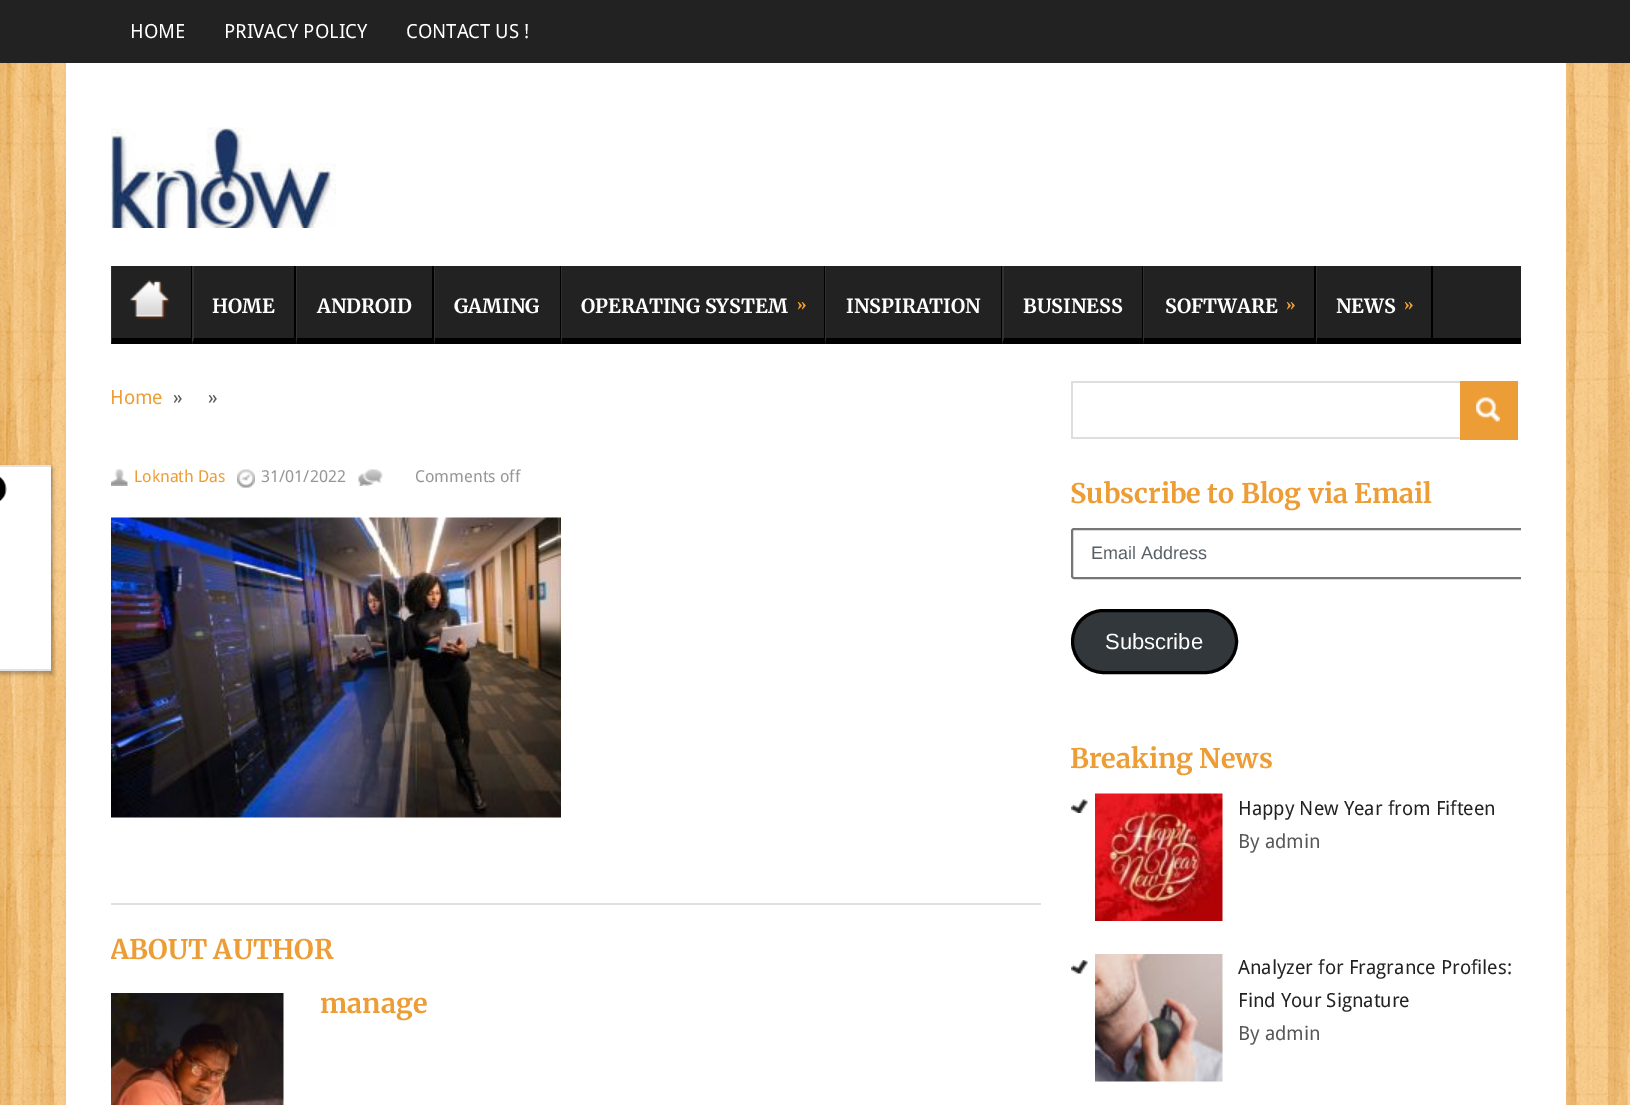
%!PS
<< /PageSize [1630 1105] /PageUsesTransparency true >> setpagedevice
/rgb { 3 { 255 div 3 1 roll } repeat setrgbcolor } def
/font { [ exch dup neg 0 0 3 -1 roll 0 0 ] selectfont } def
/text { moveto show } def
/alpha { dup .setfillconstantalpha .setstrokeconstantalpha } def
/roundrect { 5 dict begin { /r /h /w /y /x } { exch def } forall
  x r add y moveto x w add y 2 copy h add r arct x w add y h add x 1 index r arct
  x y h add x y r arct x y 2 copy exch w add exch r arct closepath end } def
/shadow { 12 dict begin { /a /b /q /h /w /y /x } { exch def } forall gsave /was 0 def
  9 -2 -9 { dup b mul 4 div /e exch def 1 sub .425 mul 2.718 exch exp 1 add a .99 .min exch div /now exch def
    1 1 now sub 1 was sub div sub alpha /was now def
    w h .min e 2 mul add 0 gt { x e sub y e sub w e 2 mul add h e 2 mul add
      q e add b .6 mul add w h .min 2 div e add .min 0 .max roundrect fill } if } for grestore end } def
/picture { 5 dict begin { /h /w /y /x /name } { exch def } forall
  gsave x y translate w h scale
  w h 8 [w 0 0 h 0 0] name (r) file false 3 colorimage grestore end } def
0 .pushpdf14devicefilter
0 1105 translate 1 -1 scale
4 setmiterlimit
255 255 255 rgb
0 0 1630 1105 rectfill
(img_01.rgb) 0 63 1630 1042 picture
34 34 34 rgb
0 0 1630 63 rectfill
255 255 255 rgb
66 63 1500 1042 rectfill
(img_02.rgb) 111 127 225 101 picture
34 34 34 rgb
112 266 1409 72 rectfill
(img_03.rgb) 130 280 41 40 picture
0 0 0 rgb
111 338 1410 6 rectfill
191 266 2 78 rectfill
48 48 48 rgb
111 344 moveto 0 -78 rlineto 1 0 rlineto 0 72 rlineto closepath fill
0 0 0 rgb
294 266 2 78 rectfill
48 48 48 rgb
192 344 moveto 0 -78 rlineto 2 0 rlineto 0 72 rlineto closepath fill
0 0 0 rgb
432 266 2 78 rectfill
48 48 48 rgb
296 344 moveto 0 -78 rlineto 1 0 rlineto 0 72 rlineto closepath fill
0 0 0 rgb
560 266 2 78 rectfill
48 48 48 rgb
434 344 moveto 0 -78 rlineto 1 0 rlineto 0 72 rlineto closepath fill
0 0 0 rgb
824 266 2 78 rectfill
48 48 48 rgb
561 344 moveto 0 -78 rlineto 1 0 rlineto 0 72 rlineto closepath fill
0 0 0 rgb
1001 266 2 78 rectfill
48 48 48 rgb
825 344 moveto 0 -78 rlineto 1 0 rlineto 0 72 rlineto closepath fill
0 0 0 rgb
1142 266 2 78 rectfill
48 48 48 rgb
1002 344 moveto 0 -78 rlineto 2 0 rlineto 0 72 rlineto closepath fill
0 0 0 rgb
1314 266 2 78 rectfill
48 48 48 rgb
1143 344 moveto 0 -78 rlineto 1 0 rlineto 0 72 rlineto closepath fill
0 0 0 rgb
1431 266 2 78 rectfill
48 48 48 rgb
1316 344 moveto 0 -78 rlineto 1 0 rlineto 0 72 rlineto closepath fill
50 50 50 rgb
-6 468 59 206 0 2 0.35 shadow
255 255 255 rgb
0 467 51 202 rectfill
226 226 226 rgb
0 465 51 2 rectfill
0 669 51 2 rectfill
(img_04.rgb) 0 476 7 26 picture
(img_05.rgb) 111 517 450 301 picture
(img_06.rgb) 111 469 17 17 picture
(img_07.rgb) 237 469 18 19 picture
(img_08.rgb) 358 469 25 17 picture
224 224 224 rgb
111 903 930 2 rectfill
(img_09.rgb) 111 993 173 112 picture
222 222 222 rgb
1071 381 389 2 rectfill
1071 437 389 2 rectfill
1071 381 2 57 rectfill
237 157 54 rgb
1460 381 58 59 rectfill
(img_10.rgb) 1476 397 24 25 picture
gsave
1071 477 450 227 rectclip
118 118 118 rgb
2 setlinewidth
1072 529 468 49 2 roundrect stroke
grestore
50 55 60 rgb
1072.5 610.5 164 62 31 roundrect gsave fill grestore
0 0 0 rgb
3 setlinewidth
stroke
(img_11.rgb) 1071 799 17 14 picture
(img_12.rgb) 1095 793 128 128 picture
(img_13.rgb) 1071 960 17 14 picture
(img_14.rgb) 1095 954 128 128 picture
/DroidSans-Regular 19.5 font
255 255 255 rgb
(HOME) 130 38 text
(PRIVACY POLICY) 224 38 text
(CONTACT US !) 406 38 text
/Merriweather-Bold 19.5 font
(HOME) 212 313 text
(ANDROID) 317 313 text
(GAMING) 454 313 text
(OPERATING SYSTEM) 581 313 text
/LiberationSerif-Bold 19.5 font
237 157 54 rgb
(») 797 310 text
/Merriweather-Bold 19.5 font
255 255 255 rgb
(INSPIRATION) 846 313 text
(BUSINESS) 1023 313 text
(SOFTWARE) 1165 313 text
/LiberationSerif-Bold 19.5 font
237 157 54 rgb
(») 1286 310 text
/Merriweather-Bold 19.5 font
255 255 255 rgb
(NEWS) 1336 313 text
/LiberationSerif-Bold 19.5 font
237 157 54 rgb
(») 1404 310 text
/DroidSans-Regular 19.5 font
(Home) 110 404 text
87 87 87 rgb
(»     ») 173 404 text
/DroidSans-Regular 16.5 font
237 157 54 rgb
(Loknath Das) 134 482 text
151 150 150 rgb
(31/01/2022) 261 482 text
(Comments off) 415 482 text
gsave
111 344 1410 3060 rectclip
/Merriweather-Bold 27 font
237 157 54 rgb
(ABOUT AUTHOR) 110 959 text
grestore
/Merriweather-Bold 27 font
237 157 54 rgb
(manage) 320 1013 text
(Subscribe to Blog via Email) 1070 503 text
/LiberationSans-Regular 18 font
88 95 101 rgb
(Email Address) 1091 559 text
/LiberationSans-Regular 22 font
255 255 255 rgb
(Subscribe) 1105 649 text
/Merriweather-Bold 27 font
237 157 54 rgb
(Breaking News) 1070 768 text
/DroidSans-Regular 19.5 font
34 34 34 rgb
(Happy New Year from Fifteen) 1238 815 text
87 87 87 rgb
(By admin) 1238 848 text
34 34 34 rgb
(Analyzer for Fragrance Profiles:) 1238 974 text
(Find Your Signature) 1238 1007 text
87 87 87 rgb
(By admin) 1238 1040 text
.poppdf14devicefilter showpage
